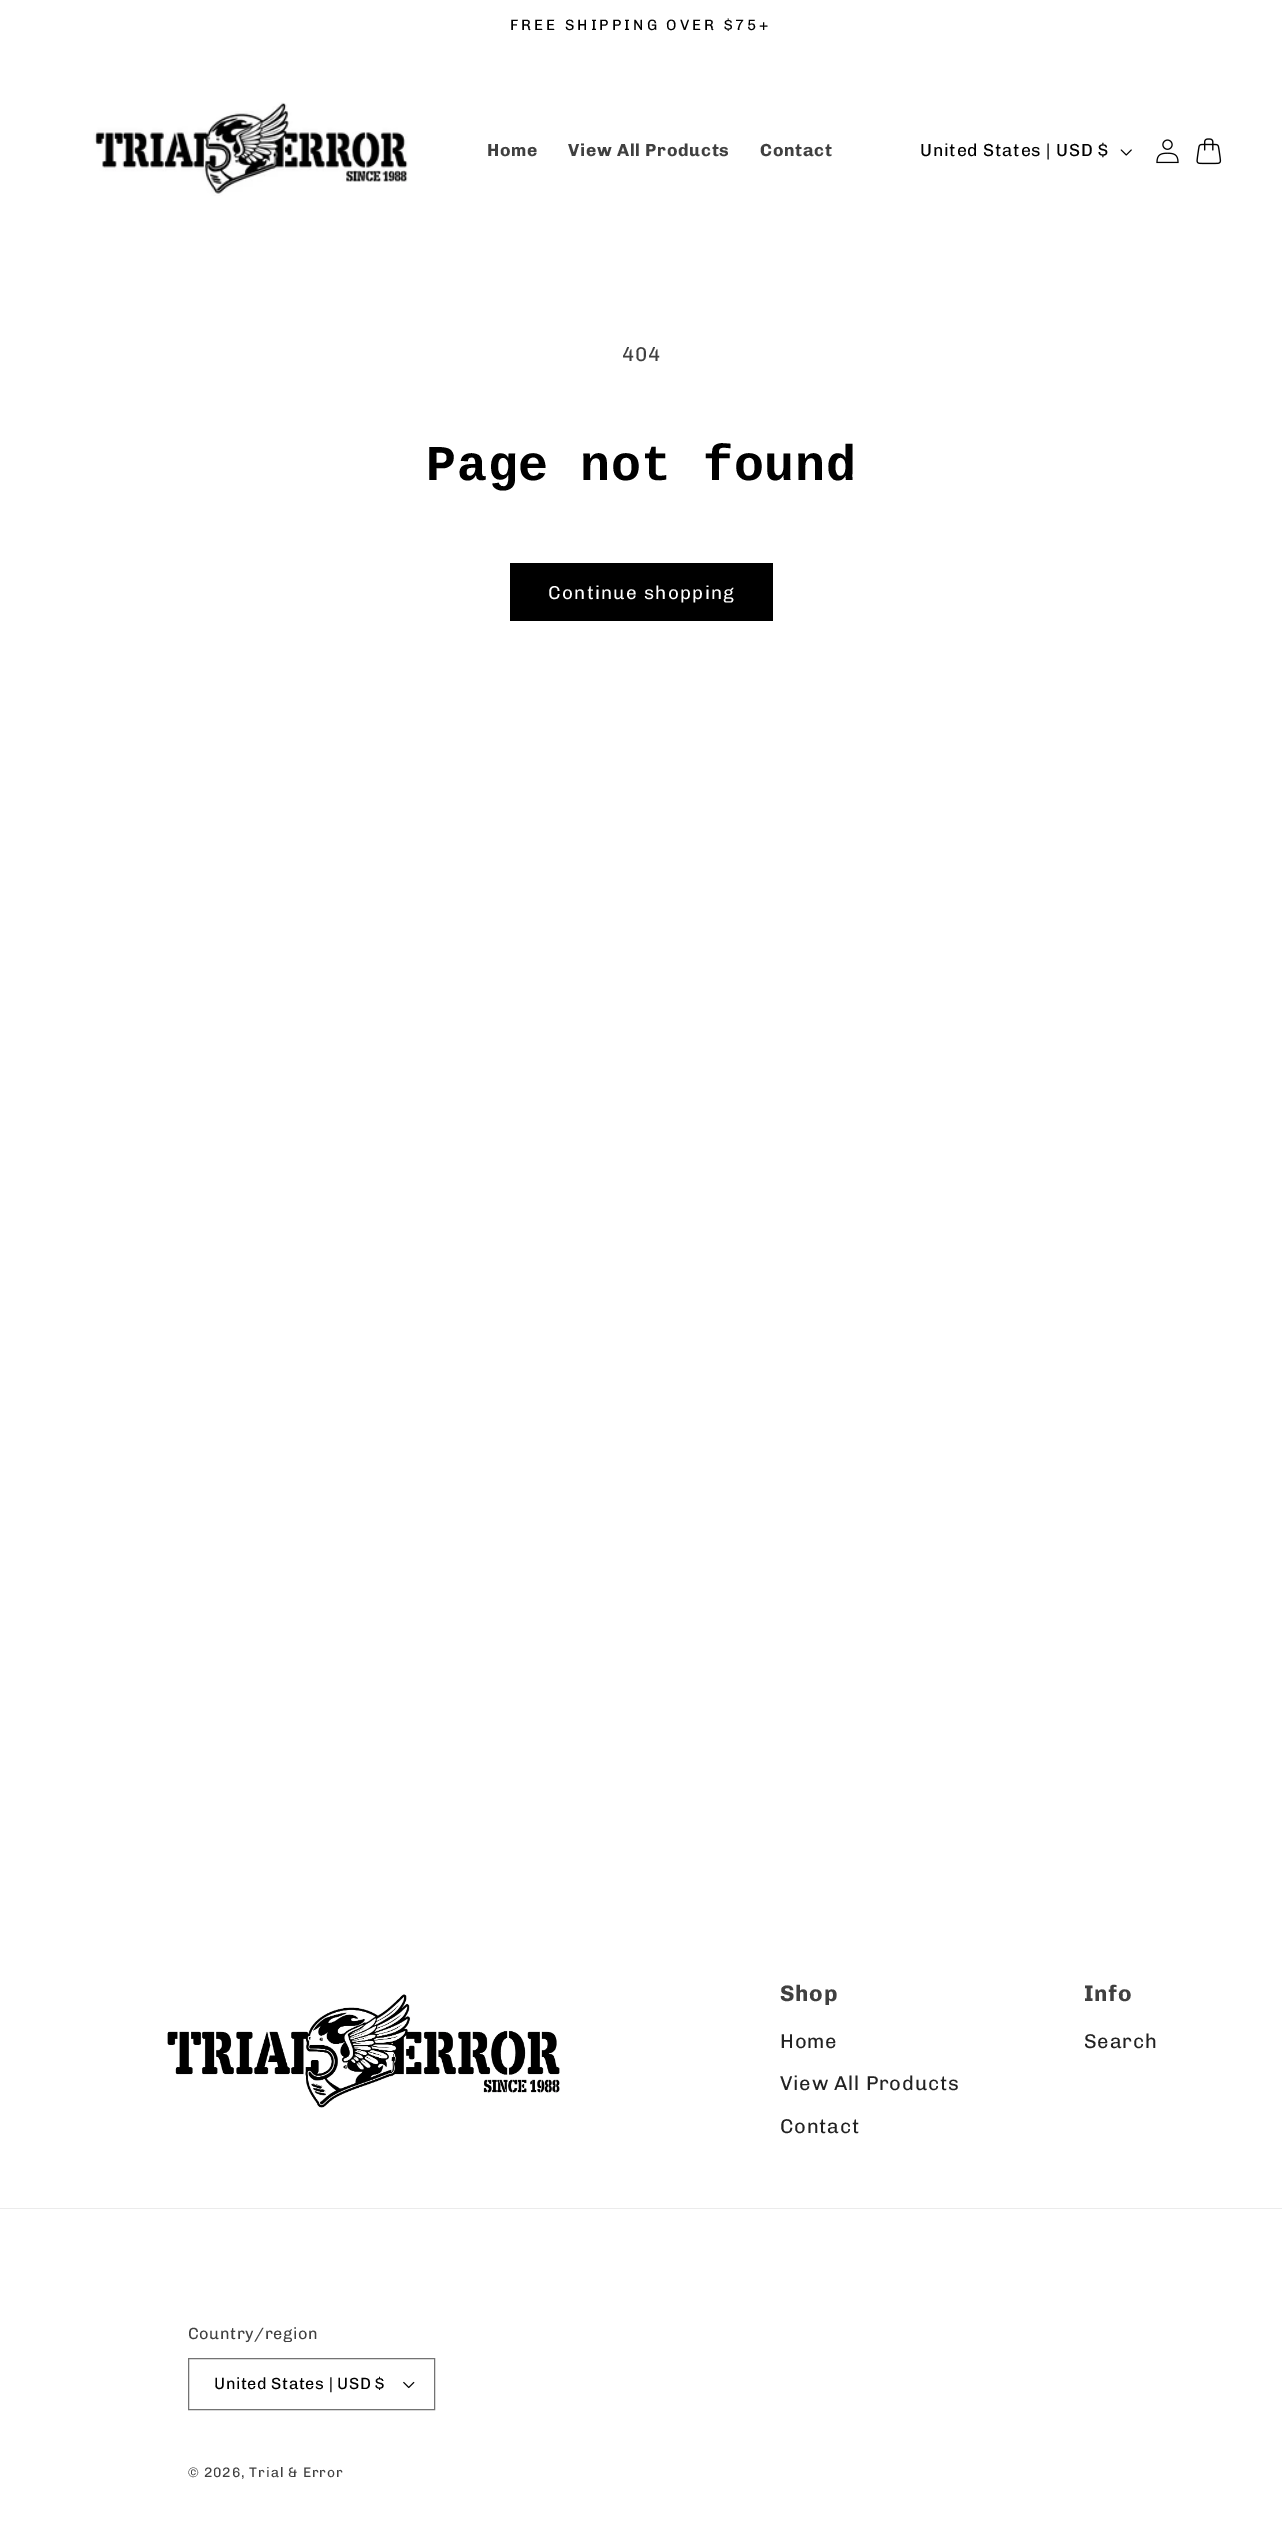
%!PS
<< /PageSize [1282 2529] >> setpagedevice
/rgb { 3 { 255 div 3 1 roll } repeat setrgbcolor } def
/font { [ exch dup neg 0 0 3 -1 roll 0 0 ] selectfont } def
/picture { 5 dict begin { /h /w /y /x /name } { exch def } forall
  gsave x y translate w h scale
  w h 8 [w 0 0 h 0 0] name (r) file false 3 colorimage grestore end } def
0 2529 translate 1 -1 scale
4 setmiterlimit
255 255 255 rgb
0 0 1282 2529 rectfill
(img_01.rgb) 93 102 315 94 picture
(img_02.rgb) 1120 149 12 7 picture
(img_03.rgb) 1156 139 23 25 picture
(img_04.rgb) 1196 138 26 27 picture
0 0 0 rgb
510 563 263 58 rectfill
(img_05.rgb) 167 1994 393 114 picture
235 235 235 rgb
0 2208 1282 1 rectfill
(img_06.rgb) 403 2381 12 8 picture
115 115 115 rgb
188.5 2358.5 246 51 rectstroke
/Chivo-Regular 15 font
0 0 0 rgb
510 30 moveto 3 0 (FREE SHIPPING OVER $75+) ashow
/Chivo-Bold 17.5 font
64 64 64 rgb
487 156 moveto 0.75 0 (Home) ashow
568 156 moveto 0.75 0 (View All Products) ashow
760 156 moveto 0.75 0 (Contact) ashow
/Chivo-Regular 17.5 font
0 0 0 rgb
920 156 moveto 0.75 0 (United States | USD $) ashow
/Chivo-Regular 20 font
64 64 64 rgb
622 361 moveto 0.75 0 (404) ashow
/LiberationMono-Bold 50 font
0 0 0 rgb
426 480 moveto 0.75 0 (Page not found) ashow
/Chivo-Regular 18.75 font
255 255 255 rgb
548 599 moveto 1.25 0 (Continue shopping) ashow
/Chivo-Bold 22.5 font
64 64 64 rgb
780 2001 moveto 0.75 0 (Shop) ashow
/Chivo-Regular 20 font
34 34 34 rgb
780 2048 moveto 0.75 0 (Home) ashow
780 2090 moveto 0.75 0 (View All Products) ashow
780 2133 moveto 0.75 0 (Contact) ashow
/Chivo-Bold 22.5 font
64 64 64 rgb
1084 2001 moveto 0.75 0 (Info) ashow
/Chivo-Regular 20 font
34 34 34 rgb
1084 2048 moveto 0.75 0 (Search) ashow
/Chivo-Regular 16.25 font
64 64 64 rgb
188 2339 moveto 0.5 0 (Country/region) ashow
0 0 0 rgb
214 2389 moveto 0.5 0 (United States | USD $) ashow
/Chivo-Regular 13.75 font
64 64 64 rgb
188 2477 moveto 0.9 0 (© 2026, Trial & Error) ashow
showpage
